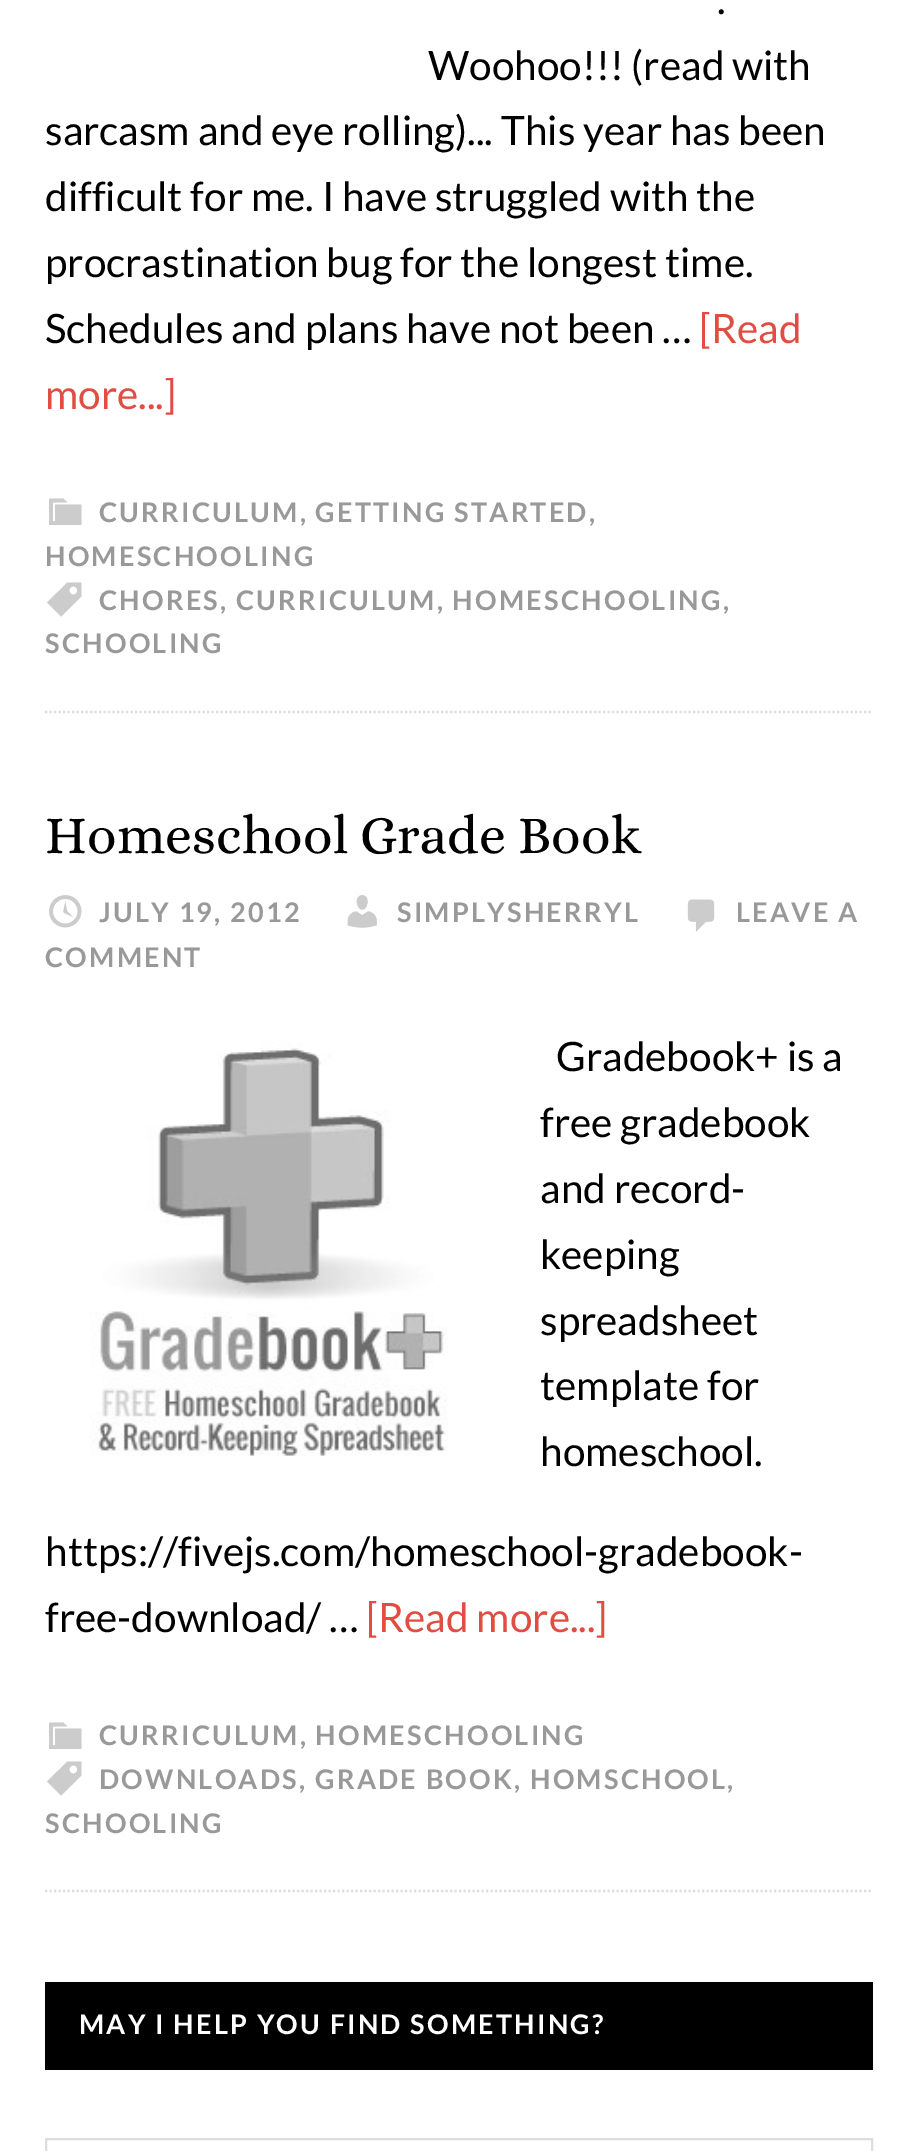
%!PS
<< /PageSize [916 2151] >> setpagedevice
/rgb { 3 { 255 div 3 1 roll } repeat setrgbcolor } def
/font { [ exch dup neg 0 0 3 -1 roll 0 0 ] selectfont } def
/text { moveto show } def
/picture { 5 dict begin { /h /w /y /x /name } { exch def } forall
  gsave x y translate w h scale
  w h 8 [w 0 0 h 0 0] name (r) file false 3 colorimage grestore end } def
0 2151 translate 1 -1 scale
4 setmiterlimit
255 255 255 rgb
0 0 916 2151 rectfill
221 221 221 rgb
2.2 setlinewidth
[2.25 2.25] 0 setdash
45 712 moveto 828 0 rlineto stroke
204 204 204 rgb
55 504.5 moveto 26.5 0 rlineto 0 20.5 rlineto -32.5 0 rlineto 0 -26.5 rlineto 14 0 rlineto 4.5 4 rlineto -14.5 0 rlineto 0 18.5 rlineto 2 0 rlineto closepath fill
67.5 582.5 moveto 14 0 rlineto 0 14 rlineto -20.5 20 rlineto -14 -14 rlineto closepath 73.5 594.5 moveto 5 0 5 -8 0 -8 rcurveto -5.5 0 -5.5 8 0 8 rcurveto closepath fill
221 221 221 rgb
45 1891 moveto 828 0 rlineto stroke
(img_01.rgb) 687 899 28 33 picture
(img_02.rgb) 49 895 33 33 picture
(img_03.rgb) 347 895 30 33 picture
(img_04.rgb) 90 1042 358 414 picture
204 204 204 rgb
55 1728.5 moveto 26.5 0 rlineto 0 20.5 rlineto -32.5 0 rlineto 0 -26.5 rlineto 14 0 rlineto 4.5 4 rlineto -14.5 0 rlineto 0 18.5 rlineto 2 0 rlineto closepath fill
67.5 1761.5 moveto 14 0 rlineto 0 14 rlineto -20.5 20 rlineto -14 -14 rlineto closepath 73.5 1773.5 moveto 5 0 5 -8 0 -8 rcurveto -5.5 0 -5.5 8 0 8 rcurveto closepath fill
0 0 0 rgb
45 1982 828 88 rectfill
221 221 221 rgb
2 setlinewidth
[] 0 setdash
46 2139 826 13 rectstroke
/Lato-Regular 40.5 font
0 0 0 rgb
(.) 717 14 text
(Woohoo!!! \(read with) 428 80 text
(sarcasm and eye rolling\)... This year has been) 45 145 text
(difficult for me. I have struggled with the) 45 211 text
(procrastination bug for the longest time.) 45 277 text
(Schedules and plans have not been …) 45 343 text
225 77 67 rgb
([Read) 699 343 text
(more...]) 45 409 text
/Lato-Bold 27 font
153 153 153 rgb
99 522 moveto 2.25 0 (CURRICULUM, GETTING STARTED,) ashow
45 566 moveto 2.25 0 (HOMESCHOOLING) ashow
99 610 moveto 2.25 0 (CHORES, CURRICULUM, HOMESCHOOLING,) ashow
45 653 moveto 2.25 0 (SCHOOLING) ashow
/Alice-Regular 54 font
0 0 0 rgb
(Homeschool Grade Book) 45 853 text
/Lato-Bold 27 font
153 153 153 rgb
736 922 moveto 2.25 0 (LEAVE A) ashow
45 967 moveto 2.25 0 (COMMENT) ashow
99 922 moveto 2.25 0 (JULY 19, 2012) ashow
397 922 moveto 2.25 0 (SIMPLYSHERRYL) ashow
/Lato-Regular 40.5 font
0 0 0 rgb
(Gradebook+ is a) 556 1071 text
(free gradebook) 540 1137 text
(and record-) 540 1203 text
(keeping) 540 1269 text
(spreadsheet) 540 1335 text
(template for) 540 1400 text
(homeschool.) 540 1466 text
(https://fivejs.com/homeschool-gradebook-) 45 1566 text
(free-download/ …) 45 1632 text
225 77 67 rgb
([Read more...]) 366 1632 text
/Lato-Bold 27 font
153 153 153 rgb
99 1745 moveto 2.25 0 (CURRICULUM, HOMESCHOOLING) ashow
99 1789 moveto 2.25 0 (DOWNLOADS, GRADE BOOK, HOMSCHOOL,) ashow
45 1833 moveto 2.25 0 (SCHOOLING) ashow
255 255 255 rgb
79 2034 moveto 2.25 0 (MAY I HELP YOU FIND SOMETHING?) ashow
showpage
